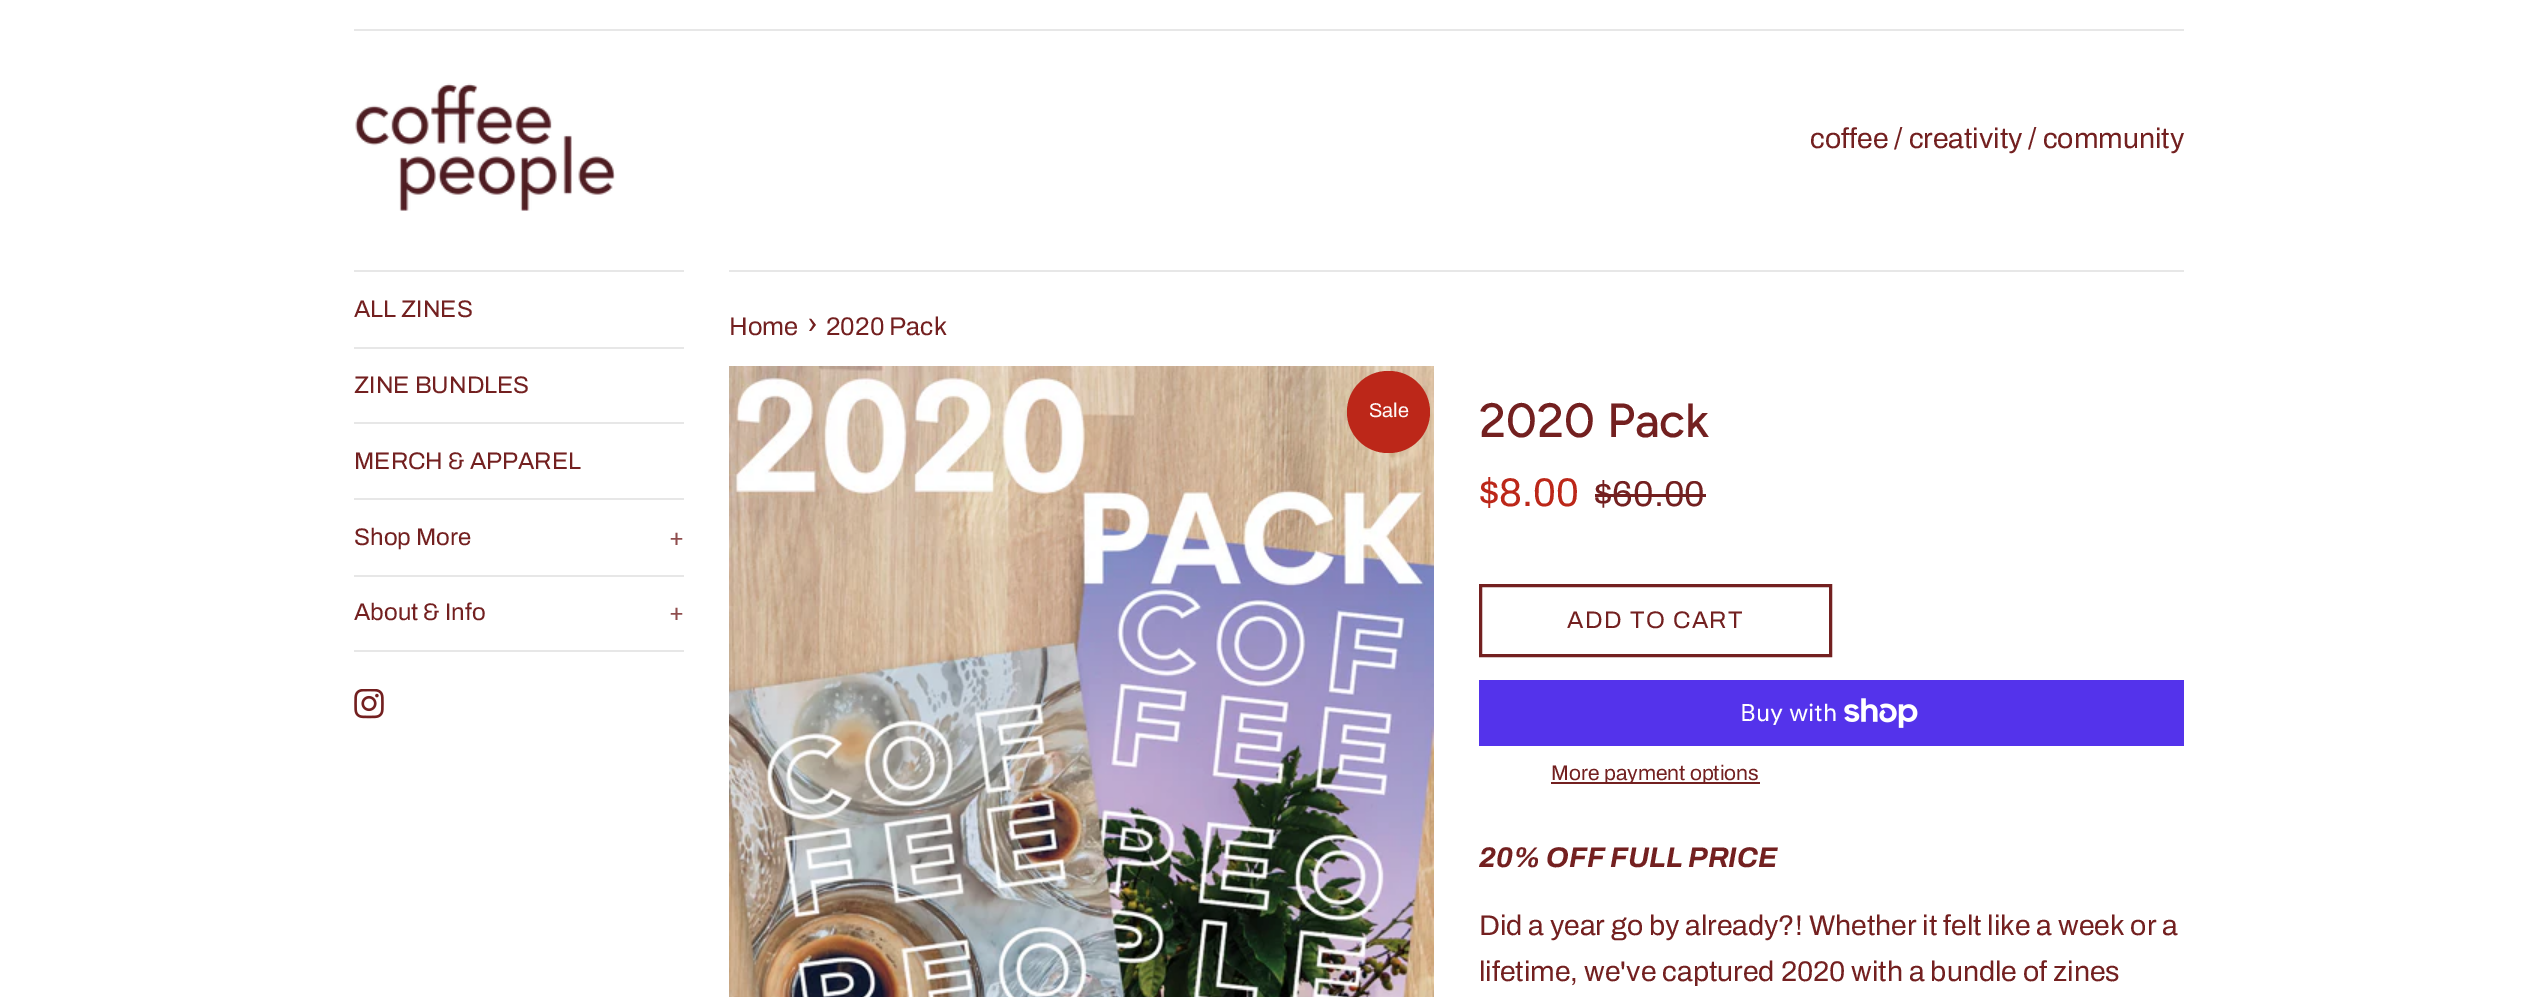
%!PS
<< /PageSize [2537 997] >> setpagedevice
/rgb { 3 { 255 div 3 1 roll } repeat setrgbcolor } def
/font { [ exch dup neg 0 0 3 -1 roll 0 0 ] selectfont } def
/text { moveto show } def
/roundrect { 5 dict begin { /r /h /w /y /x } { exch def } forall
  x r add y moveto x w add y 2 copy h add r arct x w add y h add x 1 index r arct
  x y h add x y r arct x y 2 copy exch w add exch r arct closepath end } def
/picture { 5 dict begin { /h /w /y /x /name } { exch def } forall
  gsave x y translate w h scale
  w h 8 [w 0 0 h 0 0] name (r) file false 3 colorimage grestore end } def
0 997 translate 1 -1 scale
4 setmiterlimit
255 255 255 rgb
0 0 2537 997 rectfill
231 231 231 rgb
354 29 1830 2 rectfill
(img_01.rgb) 355 83 260 128 picture
354 270 330 2 rectfill
354 347 330 2 rectfill
354 422 330 2 rectfill
354 498 330 2 rectfill
354 575 330 2 rectfill
354 650 330 2 rectfill
(img_02.rgb) 354 689 30 30 picture
729 270 1455 2 rectfill
(img_03.rgb) 729 366 705 631 picture
188 39 25 rgb
1347 371 83 82 41 roundrect fill
115 32 32 rgb
1595 494 111 3 rectfill
3 setlinewidth
1480.5 585.5 350 70 rectstroke
84 51 235 rgb
1479 680 705 66 rectfill
(img_04.rgb) 1844 698 74 30 picture
115 32 32 rgb
1551 782 209 2 rectfill
/Archivo-Regular 28.5 font
(coffee / creativity / community) 1810 148 text
/Archivo-Regular 24 font
(ALL ZINES) 354 317 text
(ZINE BUNDLES) 354 393 text
(MERCH & APPAREL) 354 469 text
(Shop More) 354 545 text
143 77 77 rgb
(+) 669 545 text
115 32 32 rgb
(About & Info) 354 620 text
143 77 77 rgb
(+) 669 620 text
/Archivo-Regular 25.5 font
115 32 32 rgb
(Home) 729 335 text
/Archivo-Regular 31 font
(›) 807 335 text
/Archivo-Regular 25.5 font
(2020 Pack) 826 335 text
/Archivo-Regular 20 font
255 249 249 rgb
(Sale) 1369 417 text
/Figtree-Medium 48 font
115 32 32 rgb
(2020 Pack) 1479 437 text
/Archivo-Regular 40 font
188 39 25 rgb
($8.00) 1479 506 text
/Archivo-Regular 36 font
115 32 32 rgb
($60.00) 1594 506 text
/Archivo-Regular 24 font
1567 628 moveto 1.5 0 (ADD TO CART) ashow
/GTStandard-Regular 24 font
255 255 255 rgb
(Buy with) 1740 721 text
/Archivo-Regular 21 font
115 32 32 rgb
(More payment options) 1551 780 text
/Archivo-BoldItalic 28.5 font
(20% OFF FULL PRICE) 1479 867 text
/Archivo-Regular 28.5 font
(Did a year go by already?! Whether it felt like a week or a) 1479 935 text
(lifetime, we've captured 2020 with a bundle of zines) 1479 981 text
showpage
